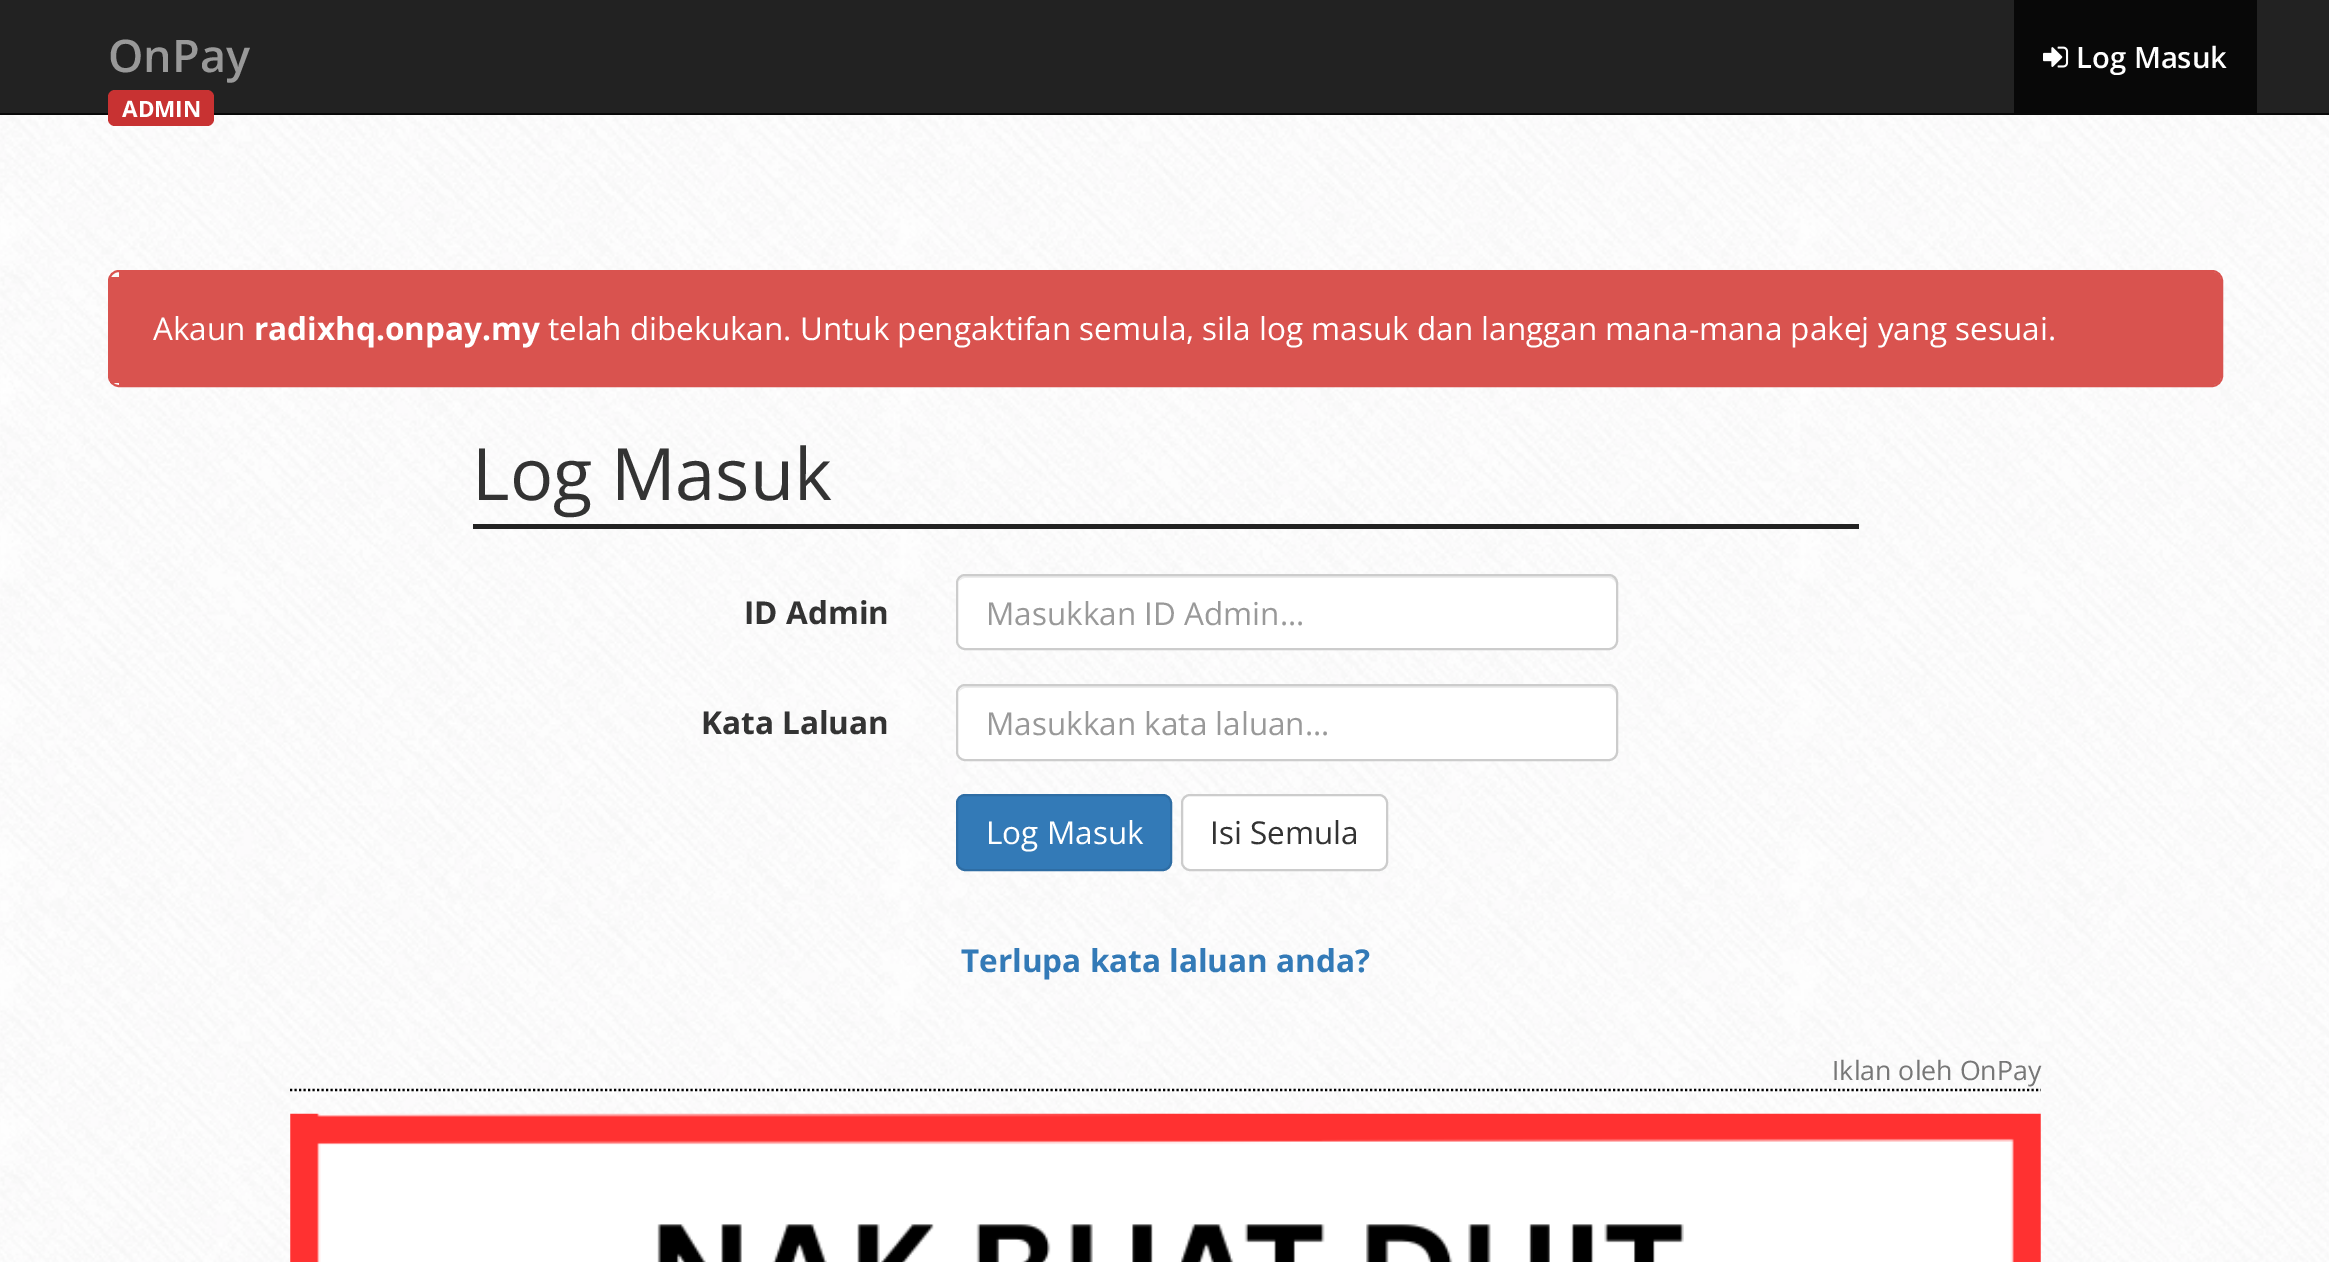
%!PS
<< /PageSize [2329 1262] >> setpagedevice
/rgb { 3 { 255 div 3 1 roll } repeat setrgbcolor } def
/font { [ exch dup neg 0 0 3 -1 roll 0 0 ] selectfont } def
/text { moveto show } def
/roundrect { 5 dict begin { /r /h /w /y /x } { exch def } forall
  x r add y moveto x w add y 2 copy h add r arct x w add y h add x 1 index r arct
  x y h add x y r arct x y 2 copy exch w add exch r arct closepath end } def
/picture { 5 dict begin { /h /w /y /x /name } { exch def } forall
  gsave x y translate w h scale
  w h 8 [w 0 0 h 0 0] name (r) file false 3 colorimage grestore end } def
0 1262 translate 1 -1 scale
4 setmiterlimit
255 255 255 rgb
0 0 2329 1262 rectfill
(img_01.rgb) 0 115 2329 1147 picture
34 34 34 rgb
0 0 2329 113 rectfill
8 8 8 rgb
0 113 2329 2 rectfill
200 50 50 rgb
108 90 106 36 7 roundrect fill
8 8 8 rgb
2014 0 243 113 rectfill
(img_02.rgb) 2043 46 26 22 picture
217 83 79 rgb
119 272 moveto 2093 0 rlineto 5 0 9 4 9 9 rcurveto 0 95 rlineto 0 5 -4 9 -9 9 rcurveto -2093 0 rlineto closepath fill
2 setlinewidth
109 271 2113 115 10 roundrect stroke
110 277 9 106 rectfill
34 34 34 rgb
473 524 1386 5 rectfill
255 255 255 rgb
956 574 662 76 9 roundrect fill
236 236 236 rgb
965 578 moveto 644 0 rlineto 3 0 7 3 7 7 rcurveto 0 -2 rlineto 0 -4 -3 -7 -7 -7 rcurveto -643 0 rlineto -3 0 -6 2 -7 5 rcurveto 2 -2 4 -3 6 -3 rcurveto closepath fill
204 204 204 rgb
957 575 660 74 8 roundrect stroke
255 255 255 rgb
956 684 662 77 9 roundrect fill
236 236 236 rgb
965 688 moveto 644 0 rlineto 3 0 7 4 7 7 rcurveto 0 -2 rlineto 0 -4 -3 -7 -7 -7 rcurveto -643 0 rlineto -4 0 -6 3 -7 6 rcurveto 1 -2 4 -4 6 -4 rcurveto closepath fill
204 204 204 rgb
957 685 660 75 8 roundrect stroke
51 122 183 rgb
957 795 214 75 8 roundrect gsave fill grestore
46 109 164 rgb
stroke
255 255 255 rgb
1182 795 205 75 8 roundrect gsave fill grestore
204 204 204 rgb
stroke
0 0 0 rgb
2.2 setlinewidth
[2.25 2.25] 0 setdash
290 1090 moveto 1751 0 rlineto stroke
(img_03.rgb) 290 1113 1751 149 picture
/OpenSans-SemiBold 45 font
153 153 153 rgb
(OnPay) 108 72 text
/OpenSans-Bold 22.5 font
255 255 255 rgb
(ADMIN) 122 117 text
/OpenSans-SemiBold 29.25 font
(Log Masuk) 2076 68 text
/OpenSans-Regular 31.5 font
(Akaun) 153 340 text
/OpenSans-Bold 31.5 font
(radixhq.onpay.my) 254 340 text
/OpenSans-Regular 31.5 font
(telah dibekukan. Untuk pengaktifan semula, sila log masuk dan langgan mana-mana pakej yang sesuai.) 548 340 text
/OpenSans-Regular 72 font
51 51 51 rgb
(Log Masuk) 472 500 text
/OpenSans-Bold 31.5 font
(ID Admin) 744 624 text
/OpenSans-Regular 31.5 font
153 153 153 rgb
(Masukkan ID Admin...) 986 625 text
/OpenSans-Bold 31.5 font
51 51 51 rgb
(Kata Laluan) 701 734 text
/OpenSans-Regular 31.5 font
153 153 153 rgb
(Masukkan kata laluan...) 986 735 text
255 255 255 rgb
(Log Masuk) 986 844 text
51 51 51 rgb
(Isi Semula) 1210 844 text
/OpenSans-Bold 31.5 font
51 122 183 rgb
(Terlupa kata laluan anda?) 961 972 text
/OpenSans-Regular 26.75 font
119 119 119 rgb
(Iklan oleh OnPay) 1832 1080 text
showpage
